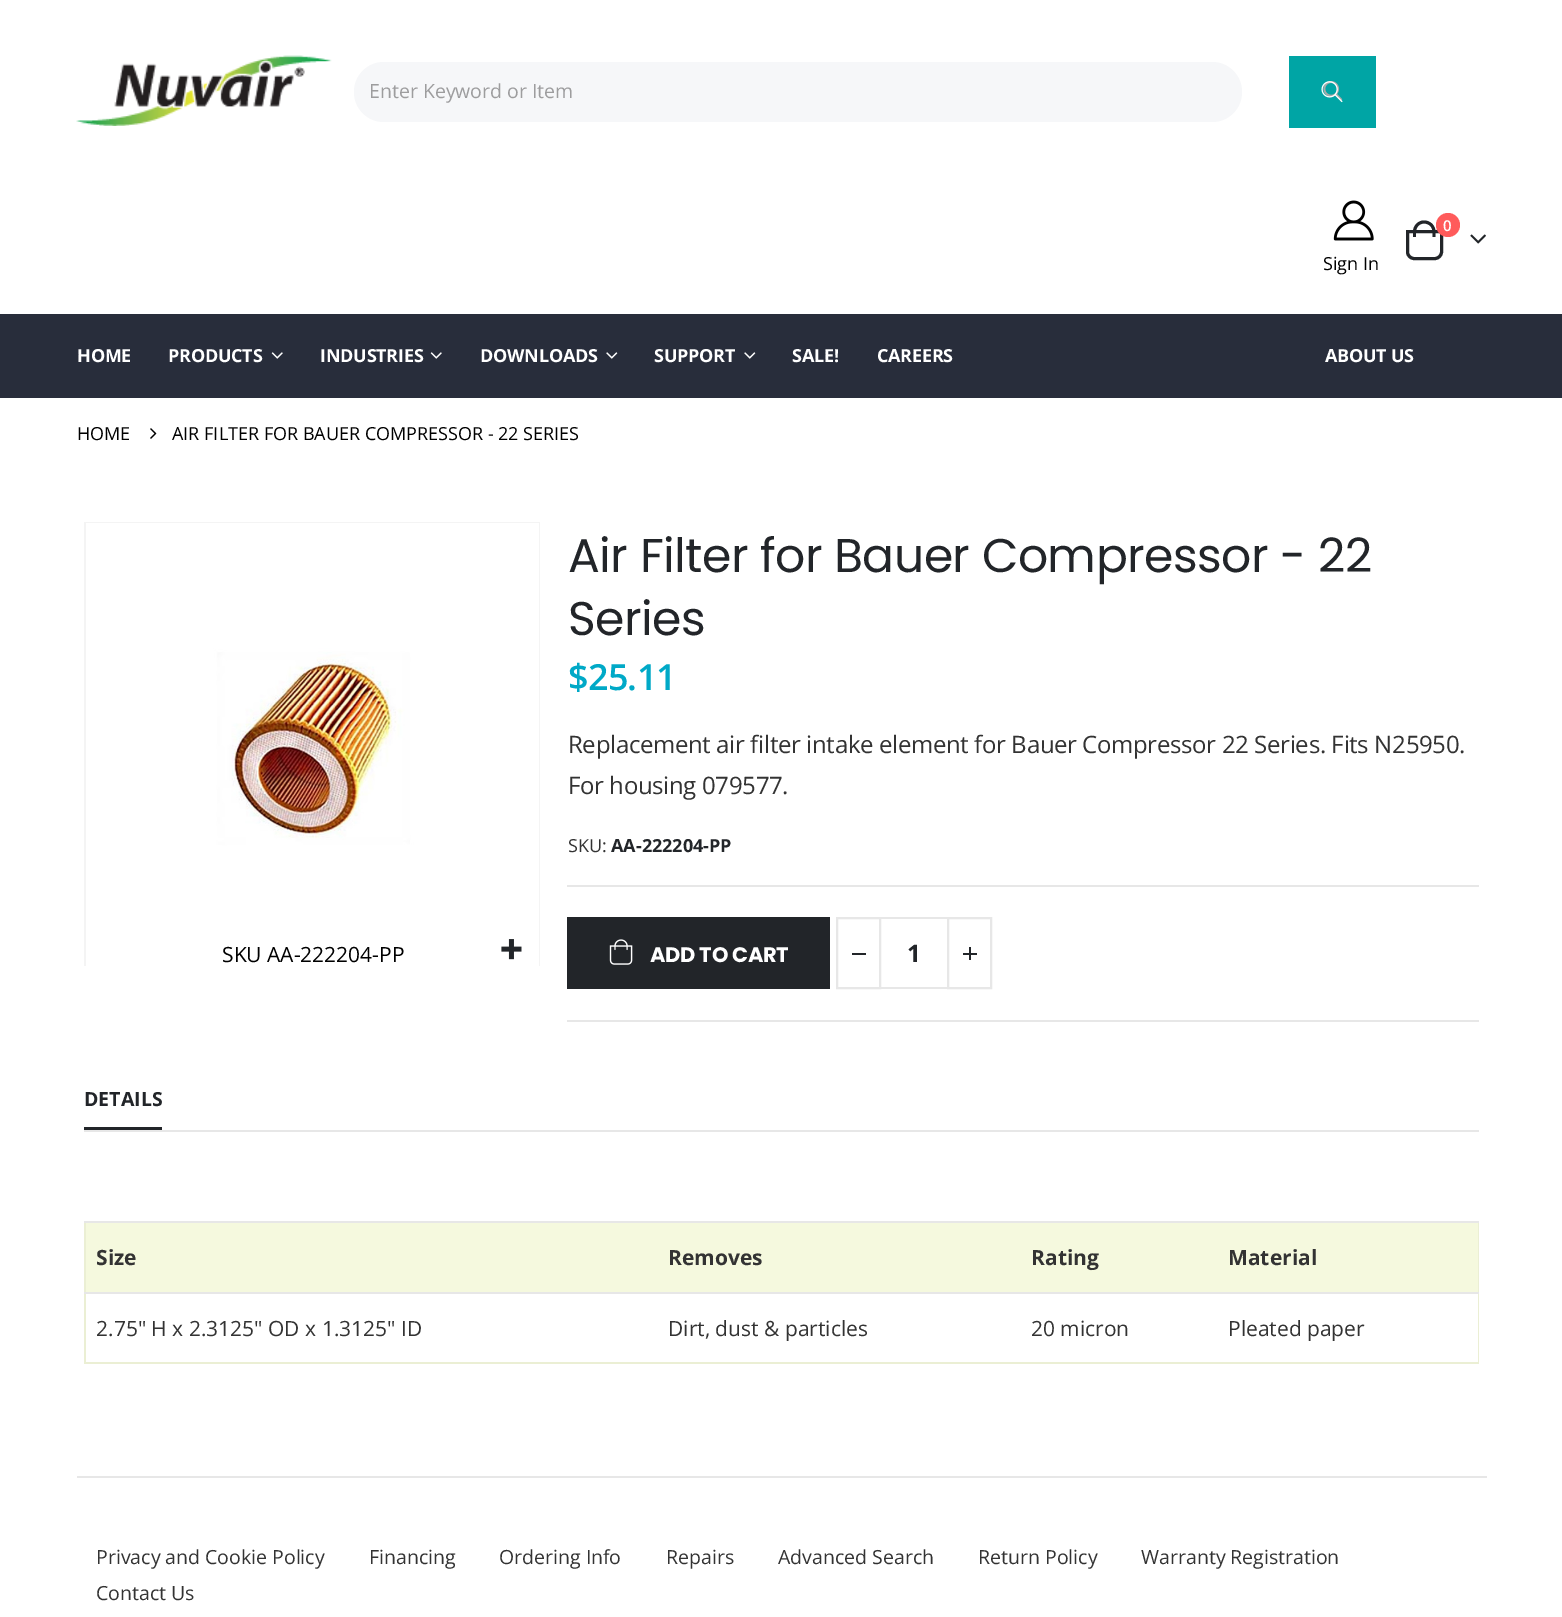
%!PS
<< /PageSize [1562 1617] >> setpagedevice
/rgb { 3 { 255 div 3 1 roll } repeat setrgbcolor } def
/font { [ exch dup neg 0 0 3 -1 roll 0 0 ] selectfont } def
/text { moveto show } def
/circle { newpath 0 360 arc closepath } def
/roundrect { 5 dict begin { /r /h /w /y /x } { exch def } forall
  x r add y moveto x w add y 2 copy h add r arct x w add y h add x 1 index r arct
  x y h add x y r arct x y 2 copy exch w add exch r arct closepath end } def
/picture { 5 dict begin { /h /w /y /x /name } { exch def } forall
  gsave x y translate w h scale
  w h 8 [w 0 0 h 0 0] name (r) file false 3 colorimage grestore end } def
0 1617 translate 1 -1 scale
4 setmiterlimit
255 255 255 rgb
0 0 1562 1617 rectfill
(img_01.rgb) 76 55 256 71 picture
246 247 249 rgb
354 62 888 60 30 roundrect fill
0 165 165 rgb
1289 56 87 72 rectfill
(img_02.rgb) 1323 81 20 20 picture
(img_03.rgb) 1321 81 22 22 picture
34 37 41 rgb
3 setlinewidth
1407.5 231.5 moveto 34 0 rlineto 0 20.5 rlineto 0 3.5 -3 6.5 -6.5 6.5 rcurveto -21 0 rlineto -3.5 0 -6.5 -3 -6.5 -6.5 rcurveto closepath stroke
1424 220.5 moveto 6.5 0 11.5 5 11.5 11.5 rcurveto 0 5 rlineto -22.5 0 rlineto 0 -5 rlineto 0 -6.5 5 -11.5 11 -11.5 rcurveto closepath 1424 223.5 moveto 5 0 8.5 3.5 8.5 8.5 rcurveto 0 5 rlineto -16.5 0 rlineto 0 -5 rlineto 0 -5 3.5 -8.5 8 -8.5 rcurveto closepath eofill
255 91 91 rgb
1448 225 12 circle fill
(img_04.rgb) 1470 234 16 10 picture
(img_05.rgb) 1333 200 41 41 picture
40 45 59 rgb
0 314 1562 84 rectfill
(img_06.rgb) 271 352 12 7 picture
(img_06.rgb) 430 352 12 7 picture
(img_07.rgb) 606 352 12 7 picture
(img_07.rgb) 744 352 12 7 picture
(img_08.rgb) 150 428 7 11 picture
gsave
84 522 456 444 rectclip
244 244 244 rgb
2 setlinewidth
85 523 454 454 rectstroke
grestore
(img_09.rgb) 86 523 453 443 picture
(img_10.rgb) 501 939 21 21 picture
231 231 231 rgb
567 885 912 2 rectfill
567 1020 912 2 rectfill
34 37 41 rgb
567 917 263 72 rectfill
(img_11.rgb) 609 939 24 26 picture
231 231 231 rgb
2 setlinewidth
837 918 43 70 rectstroke
34 37 41 rgb
852 953 14 2 rectfill
231 231 231 rgb
948 918 43 70 rectstroke
34 37 41 rgb
963 953 14 2 rectfill
969 947 2 13 rectfill
231 231 231 rgb
881 917 66 2 rectfill
881 987 66 2 rectfill
34 37 41 rgb
84 1127 78 3 rectfill
231 231 231 rgb
84 1130 1395 2 rectfill
235 239 212 rgb
1478 1221 1 143 rectfill
84 1362 1395 2 rectfill
84 1221 2 143 rectfill
245 249 222 rgb
86 1223 1392 69 rectfill
231 231 231 rgb
84 1221 1395 2 rectfill
84 1292 1395 2 rectfill
77 1476 1410 2 rectfill
/OpenSans-Regular 19.5 font
157 157 158 rgb
(Enter Keyword or Item) 369 98 text
/OpenSans-SemiBold 15 font
255 255 255 rgb
(0) 1443 231 text
/OpenSans-Regular 18 font
0 0 0 rgb
(Sign In) 1323 270 text
/OpenSans-Bold 18 font
255 255 255 rgb
77 362 moveto -0.25 0 (HOME) ashow
168 362 moveto -0.25 0 (PRODUCTS) ashow
320 362 moveto -0.25 0 (INDUSTRIES) ashow
480 362 moveto -0.25 0 (DOWNLOADS) ashow
654 362 moveto -0.25 0 (SUPPORT) ashow
792 362 moveto -0.25 0 (SALE!) ashow
877 362 moveto -0.25 0 (CAREERS) ashow
1325 362 moveto -0.25 0 (ABOUT US) ashow
/OpenSans-Regular 18 font
0 0 0 rgb
(HOME) 77 440 text
(AIR FILTER FOR BAUER COMPRESSOR - 22 SERIES) 172 440 text
/OpenSans-Regular 21 font
(SKU AA-222204-PP) 222 962 text
/Poppins-Regular 47.25 font
34 37 41 rgb
568 572 moveto -0.5 0 (Air Filter for Bauer Compressor - 22) ashow
568 635 moveto -0.5 0 (Series) ashow
/OpenSans-SemiBold 36 font
0 169 199 rgb
568 690 moveto -0.75 0 ($25.11) ashow
/OpenSans-Regular 24 font
51 51 51 rgb
568 753 moveto -0.35 0 (Replacement air filter intake element for Bauer Compressor 22 Series. Fits N25950.) ashow
568 794 moveto -0.35 0 (For housing 079577.) ashow
/OpenSans-Regular 18 font
(SKU:) 568 852 text
/OpenSans-Bold 18 font
34 37 41 rgb
(AA-222204-PP) 611 852 text
/Poppins-Bold 21 font
255 255 255 rgb
650 962 moveto -0.25 0 (ADD TO CART) ashow
/OpenSans-Bold 24 font
34 37 41 rgb
(1) 907 962 text
/OpenSans-Bold 19.5 font
(DETAILS) 84 1106 text
/OpenSans-Bold 21 font
51 51 51 rgb
(Size) 96 1265 text
(Removes) 668 1265 text
(Rating) 1031 1265 text
(Material) 1228 1265 text
/OpenSans-Regular 21 font
(2.75" H x 2.3125" OD x 1.3125" ID) 96 1336 text
(Dirt, dust & particles) 668 1336 text
(20 micron) 1031 1336 text
(Pleated paper) 1228 1336 text
/OpenSans-Regular 19.5 font
(Privacy and Cookie Policy) 96 1564 text
(Financing) 369 1564 text
(Ordering Info) 499 1564 text
(Repairs) 666 1564 text
(Advanced Search) 778 1564 text
(Return Policy) 978 1564 text
(Warranty Registration) 1141 1564 text
(Contact Us) 96 1600 text
showpage
